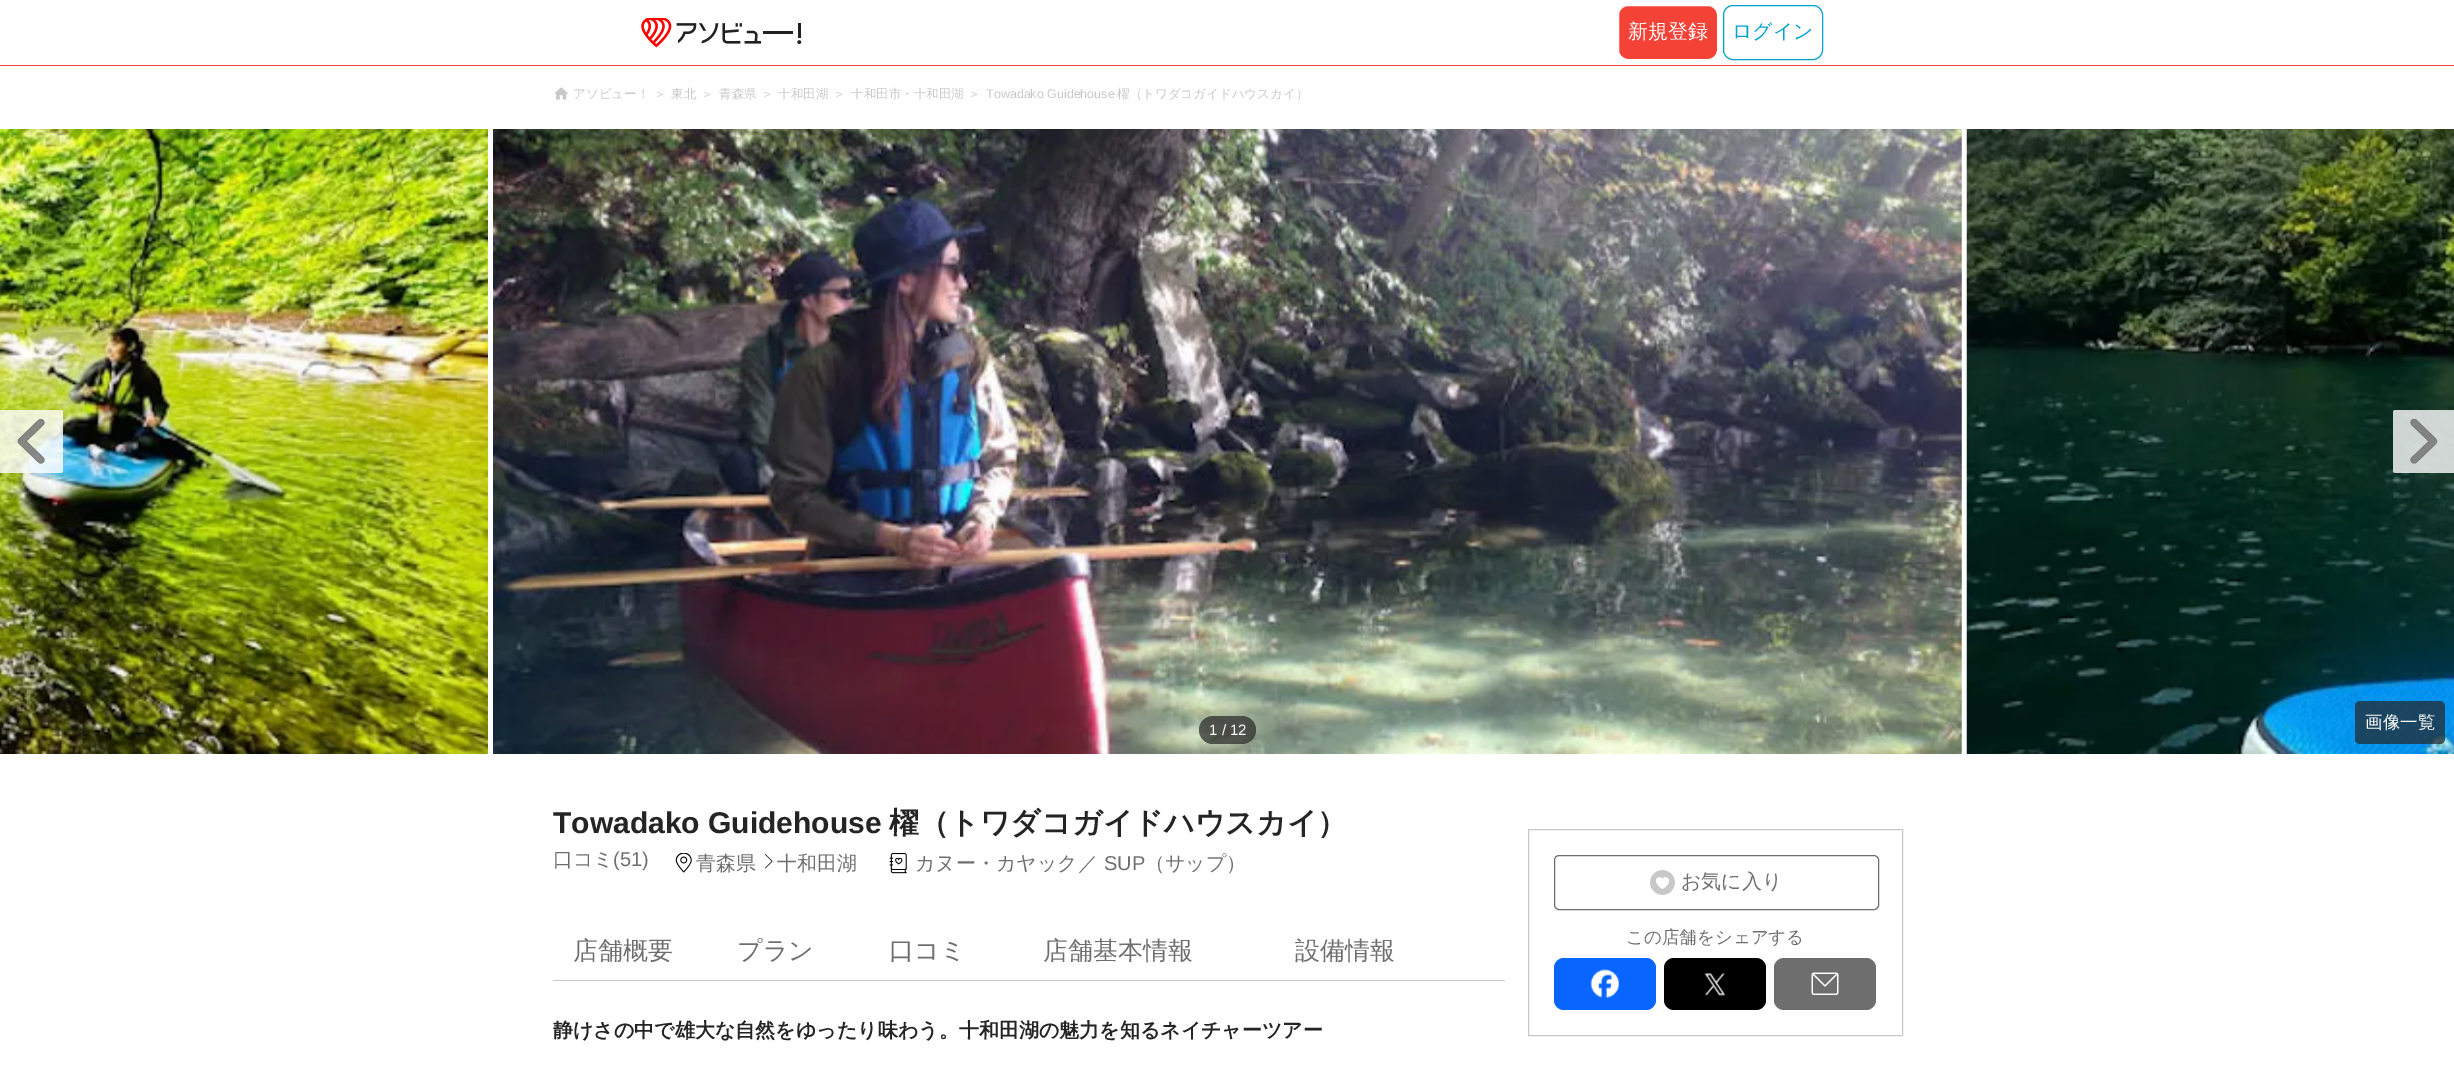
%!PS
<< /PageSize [2454 1072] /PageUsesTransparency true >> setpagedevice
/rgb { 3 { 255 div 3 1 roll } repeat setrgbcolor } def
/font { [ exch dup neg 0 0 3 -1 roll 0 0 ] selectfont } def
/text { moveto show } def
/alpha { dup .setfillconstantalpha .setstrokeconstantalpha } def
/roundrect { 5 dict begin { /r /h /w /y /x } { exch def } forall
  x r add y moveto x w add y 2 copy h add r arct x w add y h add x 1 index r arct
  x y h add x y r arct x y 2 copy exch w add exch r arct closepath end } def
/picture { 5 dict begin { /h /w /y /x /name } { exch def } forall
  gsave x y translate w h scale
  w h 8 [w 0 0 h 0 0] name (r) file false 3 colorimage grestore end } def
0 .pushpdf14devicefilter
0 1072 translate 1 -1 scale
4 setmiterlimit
255 255 255 rgb
0 0 2454 1072 rectfill
244 67 54 rgb
0 65 2454 1 rectfill
(img_01.rgb) 641 18 161 30 picture
1618.5 5.5 99 54 9.5 roundrect gsave fill grestore
255 255 255 rgb
stroke
0 160 208 rgb
1723.5 5.5 99 54 9.5 roundrect stroke
(img_02.rgb) 554 87 15 13 picture
(img_03.rgb) 0 129 488 625 picture
(img_04.rgb) 493 129 1469 625 picture
(img_05.rgb) 1966 129 488 625 picture
0.8 alpha
255 255 255 rgb
0 410 moveto 60.5 0 rlineto 1.5 0 2.5 1 2.5 2.5 rcurveto 0 58 rlineto 0 1.5 -1 2.5 -2.5 2.5 rcurveto -60.5 0 rlineto closepath fill
1 alpha
(img_06.rgb) 17 419 28 45 picture
0.8 alpha
2395.5 410 moveto 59.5 0 rlineto 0 63 rlineto -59.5 0 rlineto -1.5 0 -2.5 -1 -2.5 -2.5 rcurveto 0 -58 rlineto 0 -1.5 1 -2.5 2.5 -2.5 rcurveto closepath fill
1 alpha
(img_07.rgb) 2410 419 28 45 picture
0.7 alpha
36 36 36 rgb
1199 716 57 28 14 roundrect fill
2355 701 90 43 5 roundrect fill
1 alpha
(img_08.rgb) 675 853 17 20 picture
(img_09.rgb) 764 854 9 15 picture
(img_10.rgb) 889 853 18 21 picture
200 200 200 rgb
553 980 952 1 rectfill
1528.5 829.5 374 206 rectstroke
110 110 110 rgb
1554.5 855.5 324 54 4.5 roundrect stroke
(img_11.rgb) 1650 870 25 25 picture
8 102 255 rgb
1554 958 102 52 10 roundrect fill
(img_12.rgb) 1590 969 29 29 picture
0 0 0 rgb
1664 958 102 52 10 roundrect fill
(img_13.rgb) 1704 973 21 23 picture
110 110 110 rgb
1774 958 102 52 10 roundrect fill
(img_14.rgb) 1811 972 28 23 picture
/WenQuanYiZenHei-Medium 20 font
255 255 255 rgb
(新規登録) 1628 38 text
0 160 208 rgb
(ログイン) 1732 38 text
/WenQuanYiZenHei-Medium 12.5 font
200 200 200 rgb
(アソビュー！) 573 98 text
(＞) 654 98 text
(東北) 671 98 text
(＞) 701 98 text
(青森県) 719 98 text
(＞) 761 98 text
(十和田湖) 778 98 text
(＞) 833 98 text
(十和田市・十和田湖) 851 98 text
(＞) 968 98 text
/LiberationSans-Regular 12.5 font
(Towadako Guidehouse) 986 98 text
/WenQuanYiZenHei-Medium 12.5 font
(櫂（トワダコガイドハウスカイ）) 1117 98 text
/LiberationSans-Regular 15 font
255 255 255 rgb
(1 / 12) 1209 735 text
/WenQuanYiZenHei-Medium 17.5 font
(画像一覧) 2365 728 text
/LiberationSans-Bold 30 font
36 36 36 rgb
(Towadako Guidehouse) 553 833 text
/WenQuanYiZenHei-Bold 30 font
(櫂（トワダコガイドハウスカイ）) 889 833 text
/WenQuanYiZenHei-Medium 20 font
110 110 110 rgb
(口コミ) 553 866 text
/LiberationSans-Regular 20 font
(\(51\)) 613 866 text
/WenQuanYiZenHei-Medium 20 font
(青森県) 696 870 text
(十和田湖) 777 870 text
(カヌー・カヤック／) 915 870 text
/LiberationSans-Regular 20 font
(SUP) 1104 870 text
/WenQuanYiZenHei-Medium 20 font
(（サップ）) 1145 870 text
/WenQuanYiZenHei-Medium 25 font
(店舗概要) 573 959 text
(プラン) 737 959 text
(口コミ) 889 959 text
(店舗基本情報) 1043 959 text
(設備情報) 1295 959 text
/WenQuanYiZenHei-Bold 20 font
36 36 36 rgb
(静けさの中で雄大な自然をゆったり味わう。十和田湖の魅力を知るネイチャーツアー) 553 1037 text
/WenQuanYiZenHei-Medium 20 font
110 110 110 rgb
(お気に入り) 1681 888 text
/WenQuanYiZenHei-Medium 17.5 font
(この店舗をシェアする) 1626 943 text
.poppdf14devicefilter showpage
